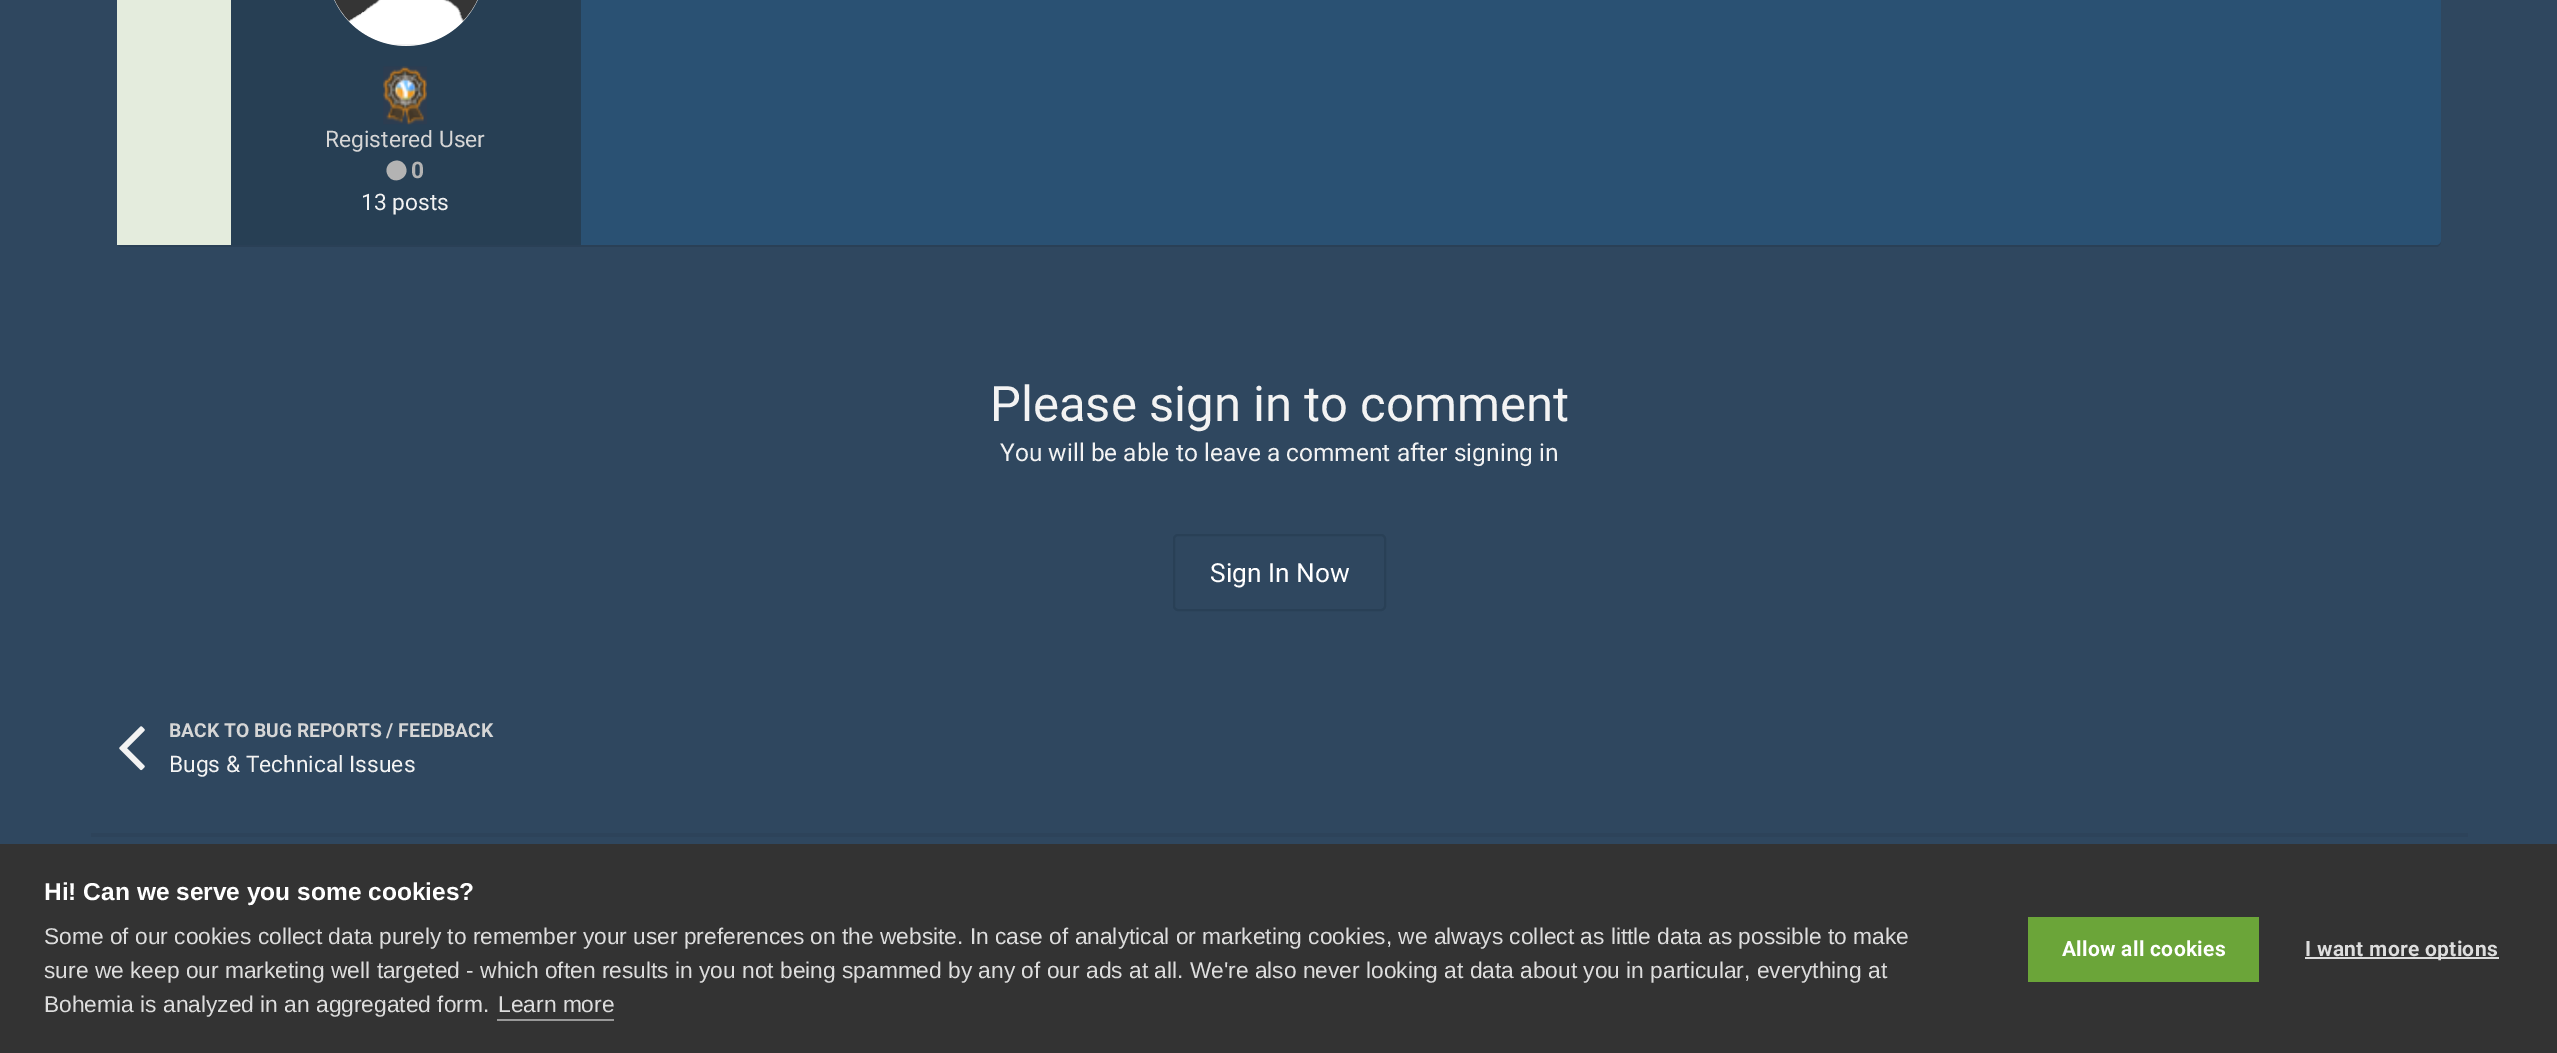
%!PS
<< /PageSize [2557 1053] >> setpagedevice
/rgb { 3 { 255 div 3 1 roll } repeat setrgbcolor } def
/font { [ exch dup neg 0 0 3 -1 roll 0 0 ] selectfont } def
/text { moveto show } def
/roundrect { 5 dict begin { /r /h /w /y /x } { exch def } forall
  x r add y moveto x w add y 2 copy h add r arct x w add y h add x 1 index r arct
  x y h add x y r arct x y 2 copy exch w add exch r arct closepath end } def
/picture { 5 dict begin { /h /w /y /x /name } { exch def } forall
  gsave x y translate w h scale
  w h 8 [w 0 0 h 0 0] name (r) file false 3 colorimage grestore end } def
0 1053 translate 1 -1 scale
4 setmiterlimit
47 71 95 rgb
0 0 2557 1053 rectfill
42 64 86 rgb
117 -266 moveto 0 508 rlineto 0 3 2 5 5 5 rcurveto 2314 0 rlineto 3 0 5 -3 5 -6 rcurveto -1 2 -3 4 -5 4 rcurveto -2314 0 rlineto -2 0 -5 -2 -5 -5 rcurveto closepath fill
42 81 115 rgb
117 -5 2324 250 5 roundrect fill
228 236 221 rgb
117 0 114 245 rectfill
39 63 84 rgb
231 0 350 245 rectfill
255 255 255 rgb
327 -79 158 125 79 roundrect fill
(img_01.rgb) 334 0 144 46 picture
(img_02.rgb) 383 66 44 59 picture
179 179 179 rgb
405 165.5 moveto 6.5 11 -10.5 21 -17 10 rcurveto -6.5 -11.5 10.5 -21 17 -10 rcurveto closepath fill
41 64 86 rgb
2 setlinewidth
1174 535 211 75 4 roundrect stroke
(img_03.rgb) 119 726 26 45 picture
45 67 90 rgb
91 833 2377 4 rectfill
51 51 51 rgb
0 844 2557 209 rectfill
153 153 153 rgb
497 1019 117 2 rectfill
107 165 57 rgb
2028 917 231 65 rectfill
221 221 221 rgb
2305 957 194 2 rectfill
/Roboto-Regular 22.75 font
214 214 214 rgb
(Registered User) 325 147 text
/Roboto-Bold 22.75 font
179 179 179 rgb
(0) 411 178 text
/Roboto-Regular 22.75 font
243 243 243 rgb
(13 posts) 361 210 text
/Roboto-Regular 49 font
(Please sign in to comment) 990 421 text
/Roboto-Regular 24.5 font
(You will be able to leave a comment after signing in) 1000 461 text
/Roboto-Regular 26.25 font
255 255 255 rgb
(Sign In Now) 1210 582 text
/Roboto-Bold 19.25 font
214 214 214 rgb
(BACK TO BUG REPORTS / FEEDBACK) 169 737 text
/Roboto-Regular 22.75 font
243 243 243 rgb
(Bugs & Technical Issues) 169 772 text
/LiberationSans-Bold 24.5 font
255 255 255 rgb
(Hi! Can we serve you some cookies?) 44 900 text
/LiberationSans-Regular 22.75 font
221 221 221 rgb
(Some of our cookies collect data purely to remember your user preferences on the website. In case of analytical or marketing cookies, we always collect as little data as possible to make) 44 944 text
(sure we keep our marketing well targeted - which often results in you not being spammed by any of our ads at all. We're also never looking at data about you in particular, everything at) 44 978 text
(Bohemia is analyzed in an aggregated form.) 44 1012 text
(Learn more) 498 1012 text
/Roboto-Bold 21 font
255 255 255 rgb
2062 956 moveto 0.3 0 (Allow all cookies) ashow
221 221 221 rgb
2305 956 moveto 0.3 0 (I want more options) ashow
showpage
